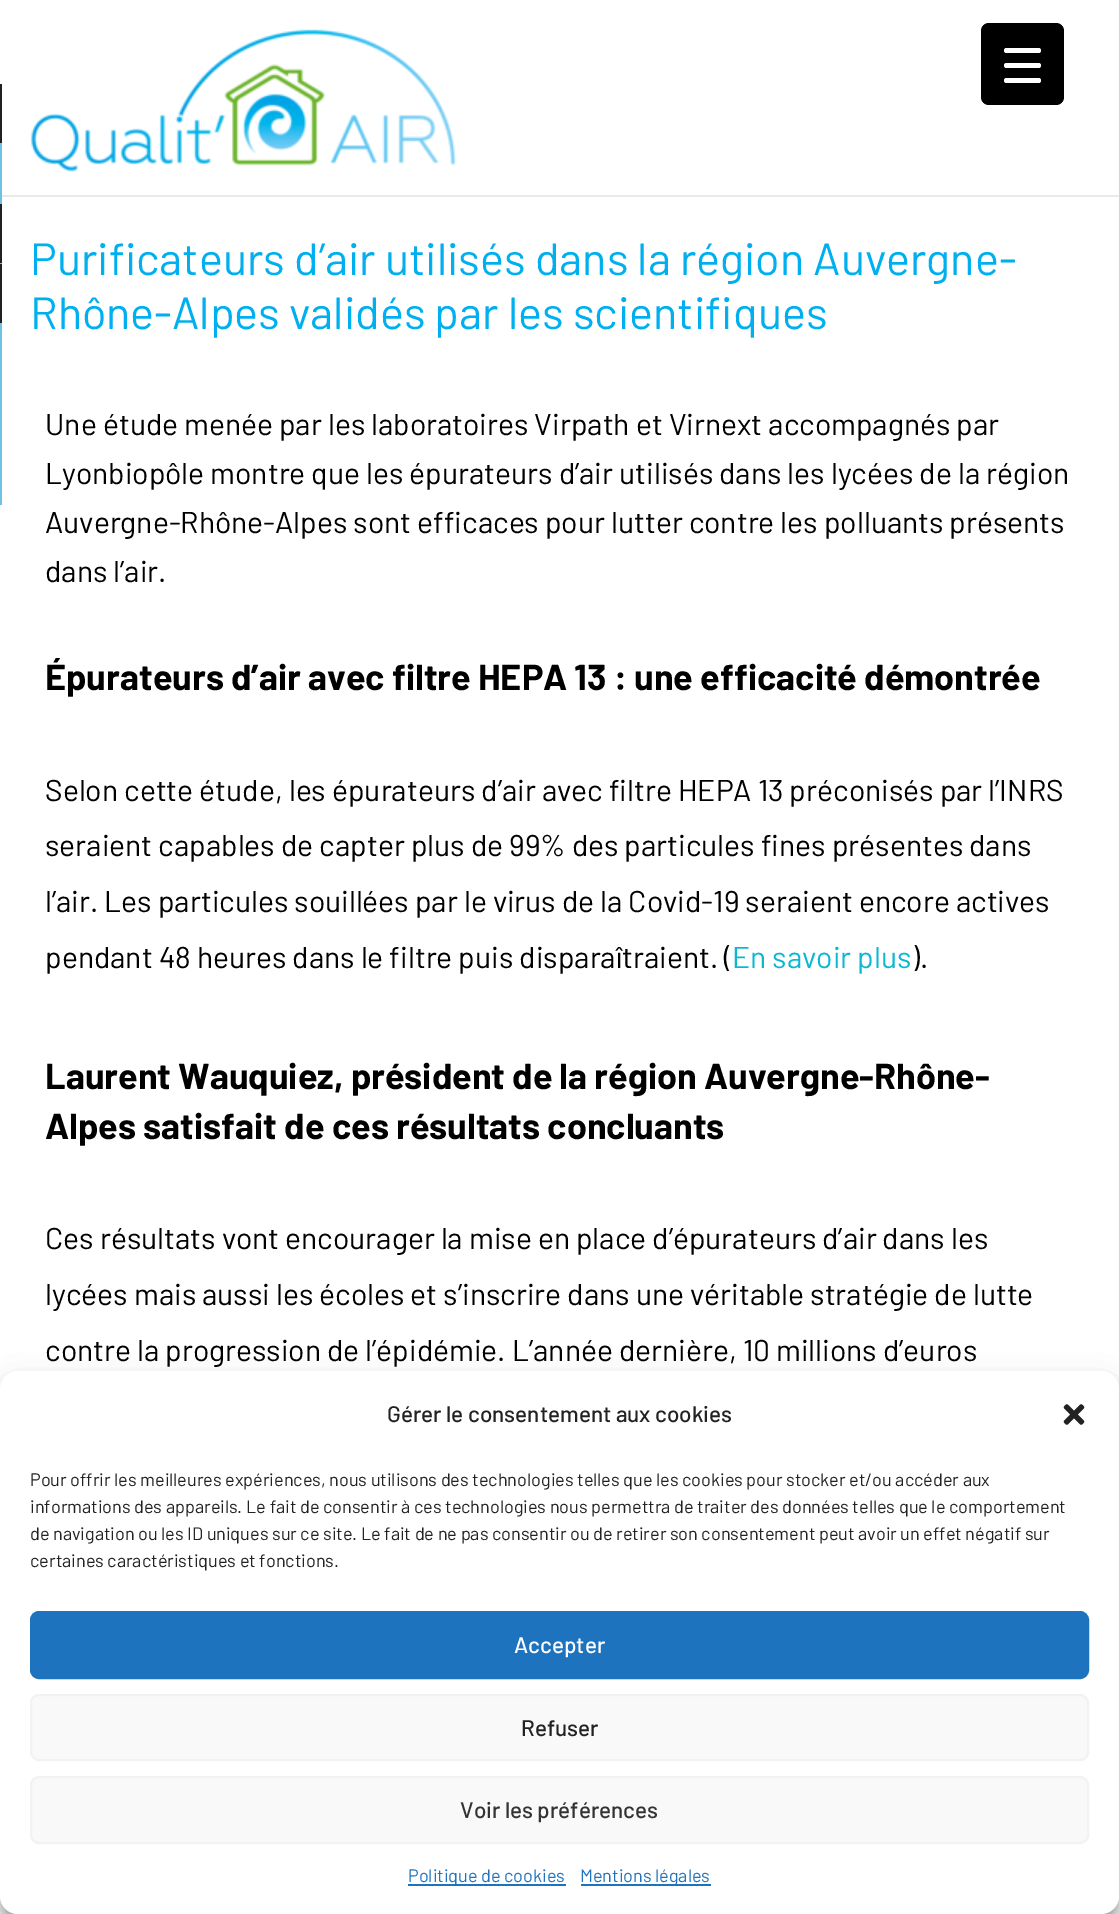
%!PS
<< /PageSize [1119 1914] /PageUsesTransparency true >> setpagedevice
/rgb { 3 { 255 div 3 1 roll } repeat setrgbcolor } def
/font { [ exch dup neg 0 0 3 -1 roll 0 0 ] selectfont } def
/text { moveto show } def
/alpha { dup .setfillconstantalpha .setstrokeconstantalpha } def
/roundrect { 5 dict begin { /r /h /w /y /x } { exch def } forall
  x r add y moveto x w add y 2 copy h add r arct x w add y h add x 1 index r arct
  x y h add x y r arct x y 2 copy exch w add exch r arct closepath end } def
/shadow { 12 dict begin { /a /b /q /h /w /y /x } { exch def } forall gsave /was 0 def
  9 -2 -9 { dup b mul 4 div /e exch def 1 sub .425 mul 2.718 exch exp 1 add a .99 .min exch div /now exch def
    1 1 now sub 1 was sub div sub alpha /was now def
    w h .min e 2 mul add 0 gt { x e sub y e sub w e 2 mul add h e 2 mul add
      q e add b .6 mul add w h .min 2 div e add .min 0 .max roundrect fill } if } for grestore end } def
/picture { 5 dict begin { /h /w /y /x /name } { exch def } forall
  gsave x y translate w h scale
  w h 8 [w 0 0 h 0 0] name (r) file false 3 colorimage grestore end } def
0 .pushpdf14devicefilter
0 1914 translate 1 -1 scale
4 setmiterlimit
255 255 255 rgb
0 0 1119 1914 rectfill
0 0 0 rgb
981 23 83 82 8 roundrect fill
255 255 255 rgb
1004 63 37 5 2.5 roundrect fill
1004 48 37 5 2.5 roundrect fill
1004 78 37 5 2.5 roundrect fill
234 234 234 rgb
0 195 1119 2 rectfill
255 255 255 rgb
0 195 2 2 rectfill
110 193 228 rgb
0 143 2 61 rectfill
33 33 33 rgb
0 84 2 59 rectfill
110 193 228 rgb
0 263 2 1 rectfill
33 33 33 rgb
0 204 2 59 rectfill
110 193 228 rgb
0 323 2 182 rectfill
33 33 33 rgb
0 264 2 59 rectfill
(img_01.rgb) 30 29 427 143 picture
0 0 0 rgb
0 1380 1119 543 18 4.5 0.23 shadow
0 1386 1119 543 18 15 0.19 shadow
255 255 255 rgb
0 1371 1119 543 18 roundrect fill
(img_02.rgb) 1063 1404 22 21 picture
30 115 190 rgb
31 1612 1057 66 8 roundrect gsave fill grestore
2 setlinewidth
stroke
249 249 249 rgb
31 1695 1057 65 8 roundrect gsave fill grestore
242 242 242 rgb
stroke
249 249 249 rgb
31 1777 1057 66 8 roundrect gsave fill grestore
242 242 242 rgb
stroke
30 115 190 rgb
408 1884 158 2 rectfill
581 1884 130 2 rectfill
/Barlow-Regular 45 font
0 175 239 rgb
(Purificateurs d’air utilisés dans la région Auvergne-) 30 275 text
(Rhône-Alpes validés par les scientifiques) 30 329 text
/Barlow-Regular 30 font
0 0 0 rgb
(Une étude menée par les laboratoires Virpath et Virnext accompagnés par) 45 435 text
(Lyonbiopôle montre que les épurateurs d’air utilisés dans les lycées de la région) 45 484 text
(Auvergne-Rhône-Alpes sont efficaces pour lutter contre les polluants présents) 45 533 text
(dans l’air.) 45 582 text
/Barlow-Bold 36 font
(Épurateurs d’air avec filtre HEPA 13 : une efficacité démontrée) 45 690 text
/Barlow-Regular 30 font
(Selon cette étude, les épurateurs d’air avec filtre HEPA 13 préconisés par l’INRS) 45 801 text
(seraient capables de capter plus de 99% des particules fines présentes dans) 45 856 text
(l’air. Les particules souillées par le virus de la Covid-19 seraient encore actives) 45 912 text
(pendant 48 heures dans le filtre puis disparaîtraient. \() 45 968 text
10 184 209 rgb
(En savoir plus) 732 968 text
0 0 0 rgb
(\).) 912 968 text
/Barlow-Bold 36 font
(Laurent Wauquiez, président de la région Auvergne-Rhône-) 45 1089 text
(Alpes satisfait de ces résultats concluants) 45 1139 text
/Barlow-Regular 30 font
(Ces résultats vont encourager la mise en place d’épurateurs d’air dans les) 45 1249 text
(lycées mais aussi les écoles et s’inscrire dans une véritable stratégie de lutte) 45 1305 text
(contre la progression de l’épidémie. L’année dernière, 10 millions d’euros) 45 1361 text
/Barlow-Medium 22.5 font
34 34 34 rgb
(Gérer le consentement aux cookies) 387 1422 text
/Barlow-Regular 18 font
(Pour offrir les meilleures expériences, nous utilisons des technologies telles que les cookies pour stocker et/ou accéder aux) 30 1486 text
(informations des appareils. Le fait de consentir à ces technologies nous permettra de traiter des données telles que le comportement) 30 1513 text
(de navigation ou les ID uniques sur ce site. Le fait de ne pas consentir ou de retirer son consentement peut avoir un effet négatif sur) 30 1540 text
(certaines caractéristiques et fonctions.) 30 1567 text
/Barlow-Medium 22.5 font
255 255 255 rgb
(Accepter) 514 1653 text
34 34 34 rgb
(Refuser) 521 1736 text
51 51 51 rgb
(Voir les préférences) 460 1818 text
/Barlow-Regular 18 font
30 115 190 rgb
(Politique de cookies) 408 1882 text
(Mentions légales) 580 1882 text
.poppdf14devicefilter showpage
